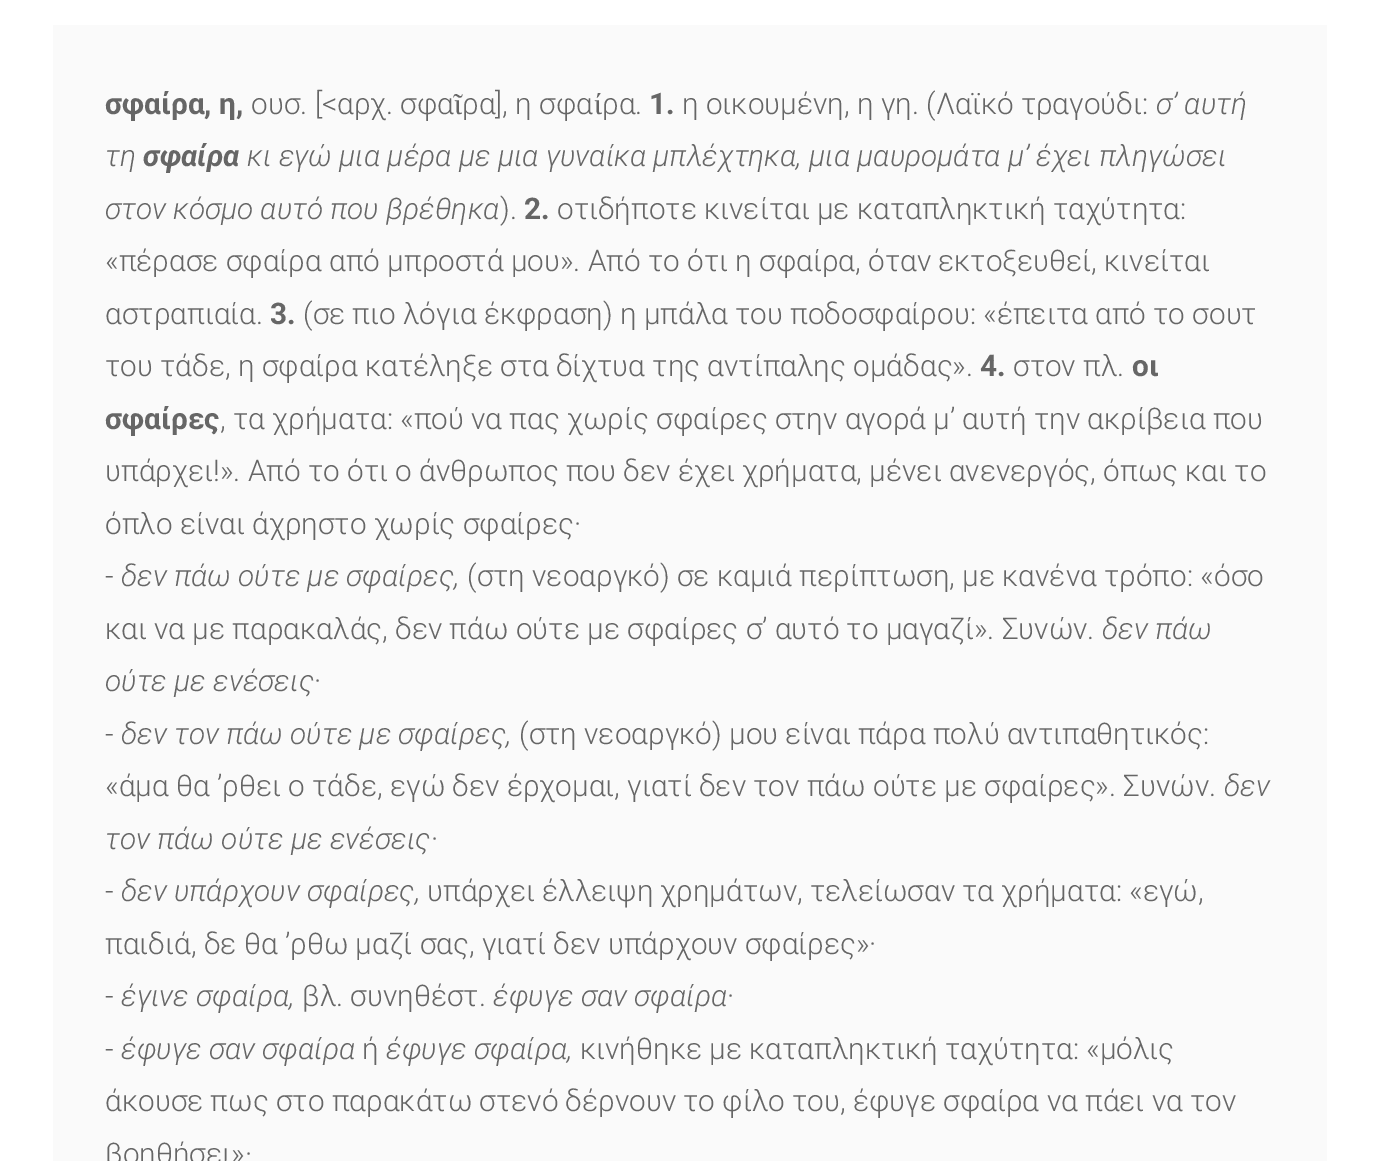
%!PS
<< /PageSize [1378 1161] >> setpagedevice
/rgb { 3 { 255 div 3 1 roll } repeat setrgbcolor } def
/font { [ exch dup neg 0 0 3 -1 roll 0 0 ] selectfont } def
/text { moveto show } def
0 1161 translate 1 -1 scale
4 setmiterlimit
255 255 255 rgb
0 0 1378 1161 rectfill
250 250 250 rgb
53 25 1274 1136 rectfill
/Roboto-Bold 29.75 font
102 102 102 rgb
(σφαίρα, η,) 105 114 text
/Roboto-Light 29.75 font
(ουσ. [<αρχ. σφα) 251 114 text
/LiberationSerif-Regular 29.75 font
(ῖ) 454 114 text
/Roboto-Light 29.75 font
(ρα], η σφα) 462 114 text
/LiberationSerif-Regular 29.75 font
(ί) 594 114 text
/Roboto-Light 29.75 font
(ρα.) 602 114 text
/Roboto-Bold 29.75 font
(1.) 649 114 text
/Roboto-Light 29.75 font
(η οικουμένη, η γη. \(Λαϊκό τραγούδι:) 682 114 text
/Roboto-LightItalic 29.75 font
(σ’ αυτή) 1156 114 text
(τη) 105 166 text
/Roboto-BoldItalic 29.75 font
(σφαίρα) 143 166 text
/Roboto-LightItalic 29.75 font
(κι εγώ μια μέρα με μια γυναίκα μπλέχτηκα, μια μαυρομάτα μ’ έχει πληγώσει) 247 166 text
(στον κόσμο αυτό που βρέθηκα) 105 219 text
/Roboto-Light 29.75 font
(\).) 500 219 text
/Roboto-Bold 29.75 font
(2.) 524 219 text
/Roboto-Light 29.75 font
(οτιδήποτε κινείται με καταπληκτική ταχύτητα:) 557 219 text
(«πέρασε σφαίρα από μπροστά μου». Από το ότι η σφαίρα, όταν εκτοξευθεί, κινείται) 105 271 text
(αστραπιαία.) 105 324 text
/Roboto-Bold 29.75 font
(3.) 270 324 text
/Roboto-Light 29.75 font
(\(σε πιο λόγια έκφραση\) η μπάλα του ποδοσφαίρου: «έπειτα από το σουτ) 303 324 text
(του τάδε, η σφαίρα κατέληξε στα δίχτυα της αντίπαλης ομάδας».) 105 376 text
/Roboto-Bold 29.75 font
(4.) 980 376 text
/Roboto-Light 29.75 font
(στον πλ.) 1013 376 text
/Roboto-Bold 29.75 font
(οι) 1132 376 text
(σφαίρες) 105 429 text
/Roboto-Light 29.75 font
(, τα χρήματα: «πού να πας χωρίς σφαίρες στην αγορά μ’ αυτή την ακρίβεια που) 220 429 text
(υπάρχει!». Από το ότι ο άνθρωπος που δεν έχει χρήματα, μένει ανενεργός, όπως και το) 105 481 text
(όπλο είναι άχρηστο χωρίς σφαίρες·) 105 534 text
(-) 105 586 text
/Roboto-LightItalic 29.75 font
(δεν πάω ούτε με σφαίρες,) 121 586 text
/Roboto-Light 29.75 font
(\(στη νεοαργκό\) σε καμιά περίπτωση, με κανένα τρόπο: «όσο) 467 586 text
(και να με παρακαλάς, δεν πάω ούτε με σφαίρες σ’ αυτό το μαγαζί». Συνών.) 105 639 text
/Roboto-LightItalic 29.75 font
(δεν πάω) 1102 639 text
(ούτε με ενέσεις) 105 691 text
/Roboto-Light 29.75 font
(·) 314 691 text
(-) 105 744 text
/Roboto-LightItalic 29.75 font
(δεν τον πάω ούτε με σφαίρες,) 121 744 text
/Roboto-Light 29.75 font
(\(στη νεοαργκό\) μου είναι πάρα πολύ αντιπαθητικός:) 519 744 text
(«άμα θα ’ρθει ο τάδε, εγώ δεν έρχομαι, γιατί δεν τον πάω ούτε με σφαίρες». Συνών.) 105 796 text
/Roboto-LightItalic 29.75 font
(δεν) 1224 796 text
(τον πάω ούτε με ενέσεις) 105 849 text
/Roboto-Light 29.75 font
(·) 431 849 text
(-) 105 901 text
/Roboto-LightItalic 29.75 font
(δεν υπάρχουν σφαίρες,) 121 901 text
/Roboto-Light 29.75 font
(υπάρχει έλλειψη χρημάτων, τελείωσαν τα χρήματα: «εγώ,) 427 901 text
(παιδιά, δε θα ’ρθω μαζί σας, γιατί δεν υπάρχουν σφαίρες»·) 105 954 text
(-) 105 1006 text
/Roboto-LightItalic 29.75 font
(έγινε σφαίρα,) 121 1006 text
/Roboto-Light 29.75 font
(βλ. συνηθέστ.) 302 1006 text
/Roboto-LightItalic 29.75 font
(έφυγε σαν σφαίρα) 493 1006 text
/Roboto-Light 29.75 font
(·) 727 1006 text
(-) 105 1059 text
/Roboto-LightItalic 29.75 font
(έφυγε σαν σφαίρα) 121 1059 text
/Roboto-Light 29.75 font
(ή) 362 1059 text
/Roboto-LightItalic 29.75 font
(έφυγε σφαίρα,) 386 1059 text
/Roboto-Light 29.75 font
(κινήθηκε με καταπληκτική ταχύτητα: «μόλις) 580 1059 text
(άκουσε πως στο παρακάτω στενό δέρνουν το φίλο του, έφυγε σφαίρα να πάει να τον) 105 1111 text
(βοηθήσει»·) 105 1164 text
showpage
